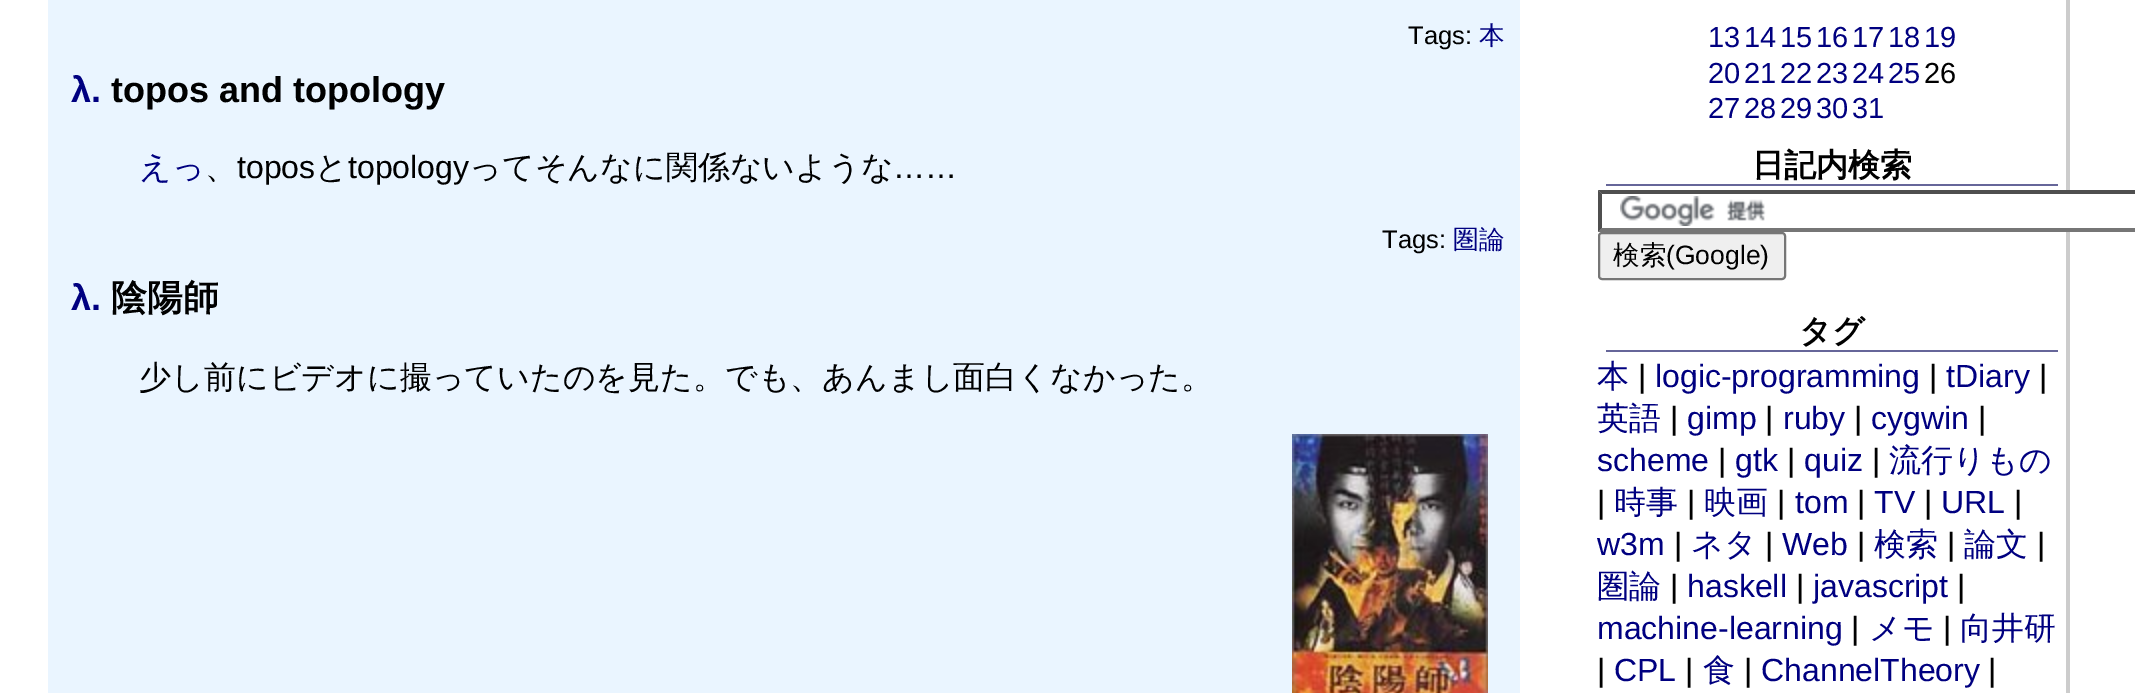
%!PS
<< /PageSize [2135 693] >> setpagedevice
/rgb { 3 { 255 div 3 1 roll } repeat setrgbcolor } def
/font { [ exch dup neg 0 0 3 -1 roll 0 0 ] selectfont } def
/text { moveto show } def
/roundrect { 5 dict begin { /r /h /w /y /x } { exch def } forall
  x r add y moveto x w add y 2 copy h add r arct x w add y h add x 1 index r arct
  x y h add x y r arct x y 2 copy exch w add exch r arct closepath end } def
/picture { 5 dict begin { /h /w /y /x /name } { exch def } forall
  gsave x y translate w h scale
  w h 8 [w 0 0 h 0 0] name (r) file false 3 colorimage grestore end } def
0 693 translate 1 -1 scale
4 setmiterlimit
255 255 255 rgb
0 0 2135 693 rectfill
234 245 255 rgb
48 0 1472 693 rectfill
(img_01.rgb) 1292 434 196 259 picture
204 204 204 rgb
2066 0 4 693 rectfill
102 102 153 rgb
1606 184 452 2 rectfill
255 255 255 rgb
2066 190 4 42 rectfill
(img_02.rgb) 1620 196 146 30 picture
79 79 79 rgb
1598 190 moveto 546 0 rlineto -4 4 rlineto -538 0 rlineto closepath fill
118 118 118 rgb
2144 232 moveto -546 0 rlineto 4 -4 rlineto 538 0 rlineto closepath fill
79 79 79 rgb
1598 232 moveto 0 -42 rlineto 4 4 rlineto 0 34 rlineto closepath fill
239 239 239 rgb
1599 233 186 46 3 roundrect gsave fill grestore
118 118 118 rgb
2 setlinewidth
stroke
102 102 153 rgb
1606 350 452 2 rectfill
/LiberationSans-Regular 25.5 font
0 0 0 rgb
(Tags:) 1408 44 text
/WenQuanYiZenHei-Medium 25.5 font
0 0 128 rgb
(本) 1479 44 text
/LiberationSans-Bold 36 font
(λ.) 71 102 text
0 0 0 rgb
(topos and topology) 111 102 text
/WenQuanYiZenHei-Medium 32 font
0 0 128 rgb
(えっ) 139 178 text
0 0 0 rgb
(、) 205 178 text
/LiberationSans-Regular 32 font
(topos) 237 178 text
/WenQuanYiZenHei-Medium 32 font
(と) 315 178 text
/LiberationSans-Regular 32 font
(topology) 348 178 text
/WenQuanYiZenHei-Medium 32 font
(ってそんなに関係ないような) 469 178 text
/LiberationSans-Regular 32 font
(……) 893 178 text
/LiberationSans-Regular 25.5 font
(Tags:) 1382 248 text
/WenQuanYiZenHei-Medium 25.5 font
0 0 128 rgb
(圏論) 1453 248 text
/LiberationSans-Bold 36 font
(λ.) 71 310 text
/WenQuanYiZenHei-Bold 36 font
0 0 0 rgb
(陰陽師) 111 310 text
/WenQuanYiZenHei-Medium 32 font
(少し前にビデオに撮っていたのを見た。でも、あんまし面白くなかった。) 139 388 text
/LiberationSans-Regular 29 font
0 0 128 rgb
(13) 1708 47 text
(14) 1744 47 text
(15) 1780 47 text
(16) 1816 47 text
(17) 1852 47 text
(18) 1888 47 text
(19) 1924 47 text
(20) 1708 83 text
(21) 1744 83 text
(22) 1780 83 text
(23) 1816 83 text
(24) 1852 83 text
(25) 1888 83 text
0 0 0 rgb
(26) 1924 83 text
0 0 128 rgb
(27) 1708 118 text
(28) 1744 118 text
(29) 1780 118 text
(30) 1816 118 text
(31) 1852 118 text
/WenQuanYiZenHei-Bold 32 font
0 0 0 rgb
(日記内検索) 1752 176 text
/WenQuanYiZenHei-Medium 26.5 font
(検索) 1613 264 text
/LiberationSans-Regular 26.5 font
(\(Google\)) 1666 264 text
/WenQuanYiZenHei-Bold 32 font
(タグ) 1799 342 text
/WenQuanYiZenHei-Medium 32 font
0 0 128 rgb
(本) 1597 387 text
/LiberationSans-Regular 32 font
0 0 0 rgb
(|) 1638 387 text
0 0 128 rgb
(logic-programming) 1655 387 text
0 0 0 rgb
(|) 1929 387 text
0 0 128 rgb
(tDiary) 1946 387 text
0 0 0 rgb
(|) 2039 387 text
/WenQuanYiZenHei-Medium 32 font
0 0 128 rgb
(英語) 1597 429 text
/LiberationSans-Regular 32 font
0 0 0 rgb
(|) 1670 429 text
0 0 128 rgb
(gimp) 1687 429 text
0 0 0 rgb
(|) 1765 429 text
0 0 128 rgb
(ruby) 1783 429 text
0 0 0 rgb
(|) 1854 429 text
0 0 128 rgb
(cygwin) 1871 429 text
0 0 0 rgb
(|) 1978 429 text
0 0 128 rgb
(scheme) 1597 471 text
0 0 0 rgb
(|) 1718 471 text
0 0 128 rgb
(gtk) 1735 471 text
0 0 0 rgb
(|) 1787 471 text
0 0 128 rgb
(quiz) 1804 471 text
0 0 0 rgb
(|) 1872 471 text
/WenQuanYiZenHei-Medium 32 font
0 0 128 rgb
(流行りもの) 1889 471 text
/LiberationSans-Regular 32 font
0 0 0 rgb
(|) 1597 513 text
/WenQuanYiZenHei-Medium 32 font
0 0 128 rgb
(時事) 1614 513 text
/LiberationSans-Regular 32 font
0 0 0 rgb
(|) 1687 513 text
/WenQuanYiZenHei-Medium 32 font
0 0 128 rgb
(映画) 1704 513 text
/LiberationSans-Regular 32 font
0 0 0 rgb
(|) 1777 513 text
0 0 128 rgb
(tom) 1795 513 text
0 0 0 rgb
(|) 1857 513 text
0 0 128 rgb
(TV) 1874 513 text
0 0 0 rgb
(|) 1924 513 text
0 0 128 rgb
(URL) 1941 513 text
0 0 0 rgb
(|) 2014 513 text
0 0 128 rgb
(w3m) 1597 555 text
0 0 0 rgb
(|) 1674 555 text
/WenQuanYiZenHei-Medium 32 font
0 0 128 rgb
(ネタ) 1691 555 text
/LiberationSans-Regular 32 font
0 0 0 rgb
(|) 1765 555 text
0 0 128 rgb
(Web) 1782 555 text
0 0 0 rgb
(|) 1857 555 text
/WenQuanYiZenHei-Medium 32 font
0 0 128 rgb
(検索) 1874 555 text
/LiberationSans-Regular 32 font
0 0 0 rgb
(|) 1947 555 text
/WenQuanYiZenHei-Medium 32 font
0 0 128 rgb
(論文) 1964 555 text
/LiberationSans-Regular 32 font
0 0 0 rgb
(|) 2037 555 text
/WenQuanYiZenHei-Medium 32 font
0 0 128 rgb
(圏論) 1597 597 text
/LiberationSans-Regular 32 font
0 0 0 rgb
(|) 1670 597 text
0 0 128 rgb
(haskell) 1687 597 text
0 0 0 rgb
(|) 1796 597 text
0 0 128 rgb
(javascript) 1813 597 text
0 0 0 rgb
(|) 1957 597 text
0 0 128 rgb
(machine-learning) 1597 639 text
0 0 0 rgb
(|) 1851 639 text
/WenQuanYiZenHei-Medium 32 font
0 0 128 rgb
(メモ) 1869 639 text
/LiberationSans-Regular 32 font
0 0 0 rgb
(|) 1943 639 text
/WenQuanYiZenHei-Medium 32 font
0 0 128 rgb
(向井研) 1960 639 text
/LiberationSans-Regular 32 font
0 0 0 rgb
(|) 1597 681 text
0 0 128 rgb
(CPL) 1614 681 text
0 0 0 rgb
(|) 1685 681 text
/WenQuanYiZenHei-Medium 32 font
0 0 128 rgb
(食) 1703 681 text
/LiberationSans-Regular 32 font
0 0 0 rgb
(|) 1744 681 text
0 0 128 rgb
(ChannelTheory) 1761 681 text
0 0 0 rgb
(|) 1988 681 text
showpage
